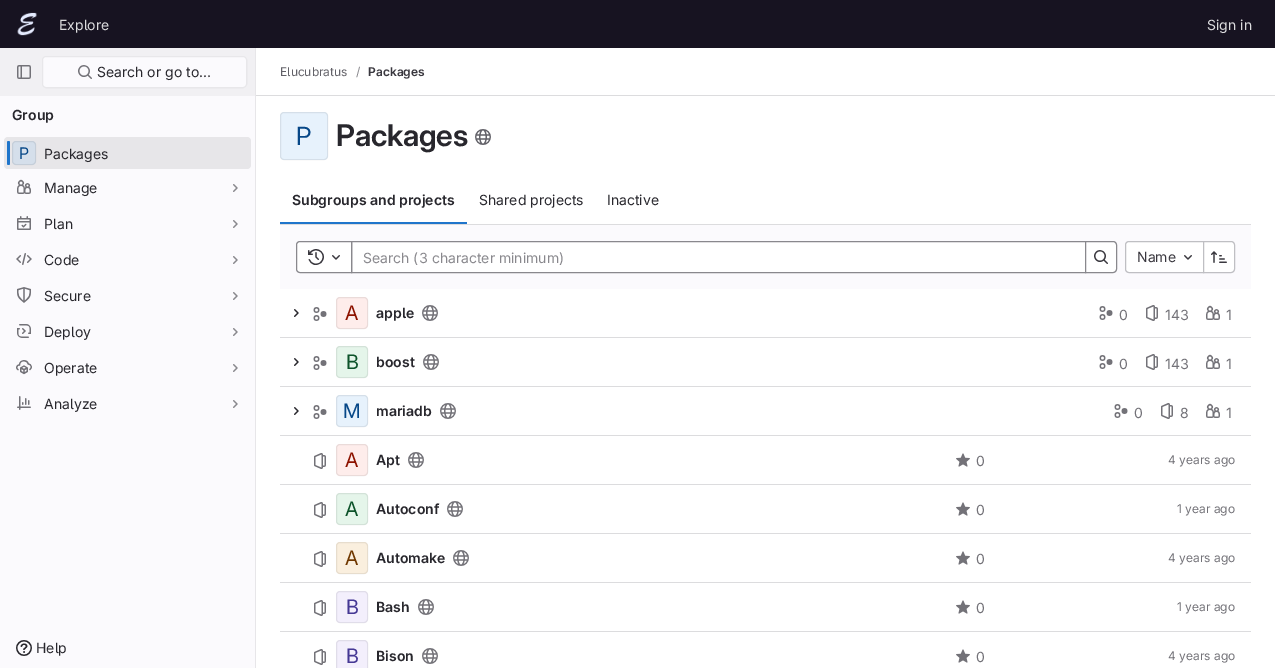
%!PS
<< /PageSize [1275 668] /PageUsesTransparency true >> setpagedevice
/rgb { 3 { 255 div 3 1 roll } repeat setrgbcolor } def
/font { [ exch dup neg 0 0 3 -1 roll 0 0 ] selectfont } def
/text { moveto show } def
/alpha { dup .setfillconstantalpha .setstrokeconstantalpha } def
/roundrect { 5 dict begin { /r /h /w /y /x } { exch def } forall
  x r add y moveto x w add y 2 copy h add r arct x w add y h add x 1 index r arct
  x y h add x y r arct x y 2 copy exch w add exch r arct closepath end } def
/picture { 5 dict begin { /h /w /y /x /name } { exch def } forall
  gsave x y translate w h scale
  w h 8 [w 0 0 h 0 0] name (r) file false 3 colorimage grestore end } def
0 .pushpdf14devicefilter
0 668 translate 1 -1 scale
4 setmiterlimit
255 255 255 rgb
0 0 1275 668 rectfill
23 19 33 rgb
0 0 1275 48 rectfill
(img_01.rgb) 17 12 20 24 picture
251 250 253 rgb
0 96 255 572 rectfill
231 230 233 rgb
255 48 1 620 rectfill
241 240 243 rgb
0 48 255 48 rectfill
(img_02.rgb) 17 65 14 14 picture
251 250 253 rgb
42 56 205 32 4 roundrect fill
0.08 alpha
5 5 6 rgb
42.5 56.5 204 31 3.5 roundrect stroke
1 alpha
(img_03.rgb) 78 65 14 14 picture
231 230 233 rgb
4 137 247 32 4 roundrect fill
31 117 203 rgb
7 141 3 24 1.5 roundrect fill
213 223 235 rgb
12 141 24 24 4 roundrect fill
0.08 alpha
5 5 6 rgb
12.5 141.5 23 23 3.5 roundrect stroke
1 alpha
(img_04.rgb) 17 179 14 15 picture
(img_05.rgb) 233 184 5 8 picture
(img_06.rgb) 17 216 14 14 picture
(img_05.rgb) 233 220 5 8 picture
(img_07.rgb) 16 253 16 12 picture
(img_05.rgb) 233 256 5 8 picture
(img_08.rgb) 17 287 14 16 picture
(img_05.rgb) 233 292 5 8 picture
(img_09.rgb) 17 324 14 14 picture
(img_05.rgb) 233 328 5 8 picture
(img_10.rgb) 16 360 16 15 picture
(img_05.rgb) 233 364 5 8 picture
(img_11.rgb) 17 396 14 14 picture
(img_05.rgb) 233 400 5 8 picture
(img_12.rgb) 16 640 16 16 picture
220 220 222 rgb
256 95 1019 1 rectfill
231 242 252 rgb
280 112 48 48 4 roundrect fill
0.08 alpha
5 5 6 rgb
280.5 112.5 47 47 3.5 roundrect stroke
1 alpha
(img_13.rgb) 475 129 16 16 picture
31 117 203 rgb
280 222 187 2 rectfill
251 250 253 rgb
280 225 971 64 rectfill
220 220 222 rgb
280 224 971 1 rectfill
255 255 255 rgb
351.5 241.5 moveto 734 0 rlineto 0 31 rlineto -734 0 rlineto closepath gsave fill grestore
137 136 141 rgb
stroke
255 255 255 rgb
300 241.5 moveto 51.5 0 rlineto 0 31 rlineto -51.5 0 rlineto -2 0 -3.5 -1.5 -3.5 -3.5 rcurveto 0 -24 rlineto 0 -2 1.5 -3.5 3.5 -3.5 rcurveto closepath gsave fill grestore
137 136 141 rgb
stroke
(img_14.rgb) 308 249 16 16 picture
(img_15.rgb) 332 255 8 5 picture
255 255 255 rgb
1085.5 241.5 moveto 27.5 0 rlineto 2 0 3.5 1.5 3.5 3.5 rcurveto 0 24 rlineto 0 2 -1.5 3.5 -3.5 3.5 rcurveto -27.5 0 rlineto closepath gsave fill grestore
137 136 141 rgb
stroke
(img_16.rgb) 1094 250 14 14 picture
255 255 255 rgb
1129 241.5 moveto 74.5 0 rlineto 0 31 rlineto -74.5 0 rlineto -2 0 -3.5 -1.5 -3.5 -3.5 rcurveto 0 -24 rlineto 0 -2 1.5 -3.5 3.5 -3.5 rcurveto closepath gsave fill grestore
191 191 195 rgb
stroke
(img_15.rgb) 1184 255 8 5 picture
255 255 255 rgb
1203.5 241.5 moveto 27.5 0 rlineto 2 0 3.5 1.5 3.5 3.5 rcurveto 0 24 rlineto 0 2 -1.5 3.5 -3.5 3.5 rcurveto -27.5 0 rlineto closepath gsave fill grestore
191 191 195 rgb
stroke
(img_17.rgb) 1211 251 16 12 picture
220 220 222 rgb
280 337 971 1 rectfill
(img_18.rgb) 294 309 5 8 picture
(img_19.rgb) 313 307 14 14 picture
254 237 235 rgb
336 297 32 32 4 roundrect fill
0.08 alpha
5 5 6 rgb
336.5 297.5 31 31 3.5 roundrect stroke
1 alpha
(img_20.rgb) 422 305 16 16 picture
(img_19.rgb) 1099 306 14 14 picture
(img_21.rgb) 1146 305 12 16 picture
(img_22.rgb) 1206 305 14 15 picture
220 220 222 rgb
280 386 971 1 rectfill
(img_18.rgb) 294 358 5 8 picture
(img_19.rgb) 313 356 14 14 picture
229 245 234 rgb
336 346 32 32 4 roundrect fill
0.08 alpha
5 5 6 rgb
336.5 346.5 31 31 3.5 roundrect stroke
1 alpha
(img_20.rgb) 423 354 16 16 picture
(img_19.rgb) 1099 355 14 14 picture
(img_21.rgb) 1146 354 12 16 picture
(img_22.rgb) 1206 354 14 15 picture
220 220 222 rgb
280 435 971 1 rectfill
(img_18.rgb) 294 407 5 8 picture
(img_19.rgb) 313 405 14 14 picture
231 242 252 rgb
336 395 32 32 4 roundrect fill
0.08 alpha
5 5 6 rgb
336.5 395.5 31 31 3.5 roundrect stroke
1 alpha
(img_20.rgb) 440 403 16 16 picture
(img_19.rgb) 1114 404 14 14 picture
(img_21.rgb) 1161 403 12 16 picture
(img_22.rgb) 1206 403 14 15 picture
220 220 222 rgb
280 484 971 1 rectfill
(img_21.rgb) 314 453 12 16 picture
254 237 235 rgb
336 444 32 32 4 roundrect fill
0.08 alpha
5 5 6 rgb
336.5 444.5 31 31 3.5 roundrect stroke
1 alpha
(img_20.rgb) 408 452 16 16 picture
(img_23.rgb) 956 453 14 14 picture
220 220 222 rgb
280 533 971 1 rectfill
(img_21.rgb) 314 502 12 16 picture
229 245 234 rgb
336 493 32 32 4 roundrect fill
0.08 alpha
5 5 6 rgb
336.5 493.5 31 31 3.5 roundrect stroke
1 alpha
(img_24.rgb) 447 501 16 16 picture
(img_25.rgb) 956 502 14 14 picture
220 220 222 rgb
280 582 971 1 rectfill
(img_21.rgb) 314 551 12 16 picture
250 239 222 rgb
336 542 32 32 4 roundrect fill
0.08 alpha
5 5 6 rgb
336.5 542.5 31 31 3.5 roundrect stroke
1 alpha
(img_20.rgb) 453 550 16 16 picture
(img_23.rgb) 956 551 14 14 picture
220 220 222 rgb
280 631 971 1 rectfill
(img_21.rgb) 314 600 12 16 picture
243 239 252 rgb
336 591 32 32 4 roundrect fill
0.08 alpha
5 5 6 rgb
336.5 591.5 31 31 3.5 roundrect stroke
1 alpha
(img_20.rgb) 418 599 16 16 picture
(img_23.rgb) 956 600 14 14 picture
(img_21.rgb) 314 649 12 16 picture
243 239 252 rgb
336 640 32 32 4 roundrect fill
0.08 alpha
5 5 6 rgb
336.5 640.5 31 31 3.5 roundrect stroke
1 alpha
(img_20.rgb) 422 648 16 16 picture
(img_23.rgb) 956 649 14 14 picture
/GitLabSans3-Regular 14 font
220 220 222 rgb
(Explore) 59 30 text
(Sign in) 1207 30 text
40 39 45 rgb
(Search or go to…) 97 77 text
/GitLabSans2-SemiBold 14 font
(Group) 12 120 text
/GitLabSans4-Regular 16 font
6 71 135 rgb
(P) 19 159 text
/GitLabSans3-Regular 14 font
40 39 45 rgb
(Packages) 44 159 text
(Manage) 44 193 text
(Plan) 44 229 text
(Code) 44 265 text
(Secure) 44 301 text
(Deploy) 44 337 text
(Operate) 44 373 text
(Analyze) 44 409 text
(Help) 36 653 text
/GitLabSans3-Regular 12 font
98 97 104 rgb
(Elucubratus) 280 76 text
137 136 141 rgb
(/) 356 76 text
/GitLabSans2-SemiBold 12 font
58 56 63 rgb
(Packages) 368 76 text
/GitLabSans-Regular 25 font
6 71 135 rgb
(P) 296 145 text
/GitLabSans-SemiBold 30 font
40 39 45 rgb
336 146 moveto -0.25 0 (Packages) ashow
/GitLabSans2-SemiBold 14 font
(Subgroups and projects) 292 205 text
/GitLabSans3-Regular 14 font
(Shared projects) 479 205 text
(Inactive) 607 205 text
137 136 141 rgb
(Search \(3 character minimum\)) 363 263 text
58 56 63 rgb
(Name) 1137 262 text
/GitLabSans2-Regular 20 font
141 19 0 rgb
(A) 345 320 text
/GitLabSans2-SemiBold 14 font
40 39 45 rgb
(apple) 376 318 text
/GitLabSans3-Regular 14 font
115 114 120 rgb
(0) 1119 320 text
(143) 1165 320 text
(1) 1226 320 text
/GitLabSans2-Regular 20 font
13 83 42 rgb
(B) 346 369 text
/GitLabSans2-SemiBold 14 font
40 39 45 rgb
(boost) 376 367 text
/GitLabSans3-Regular 14 font
115 114 120 rgb
(0) 1119 369 text
(143) 1165 369 text
(1) 1226 369 text
/GitLabSans2-Regular 20 font
6 71 135 rgb
(M) 343 418 text
/GitLabSans2-SemiBold 14 font
40 39 45 rgb
(mariadb) 376 416 text
/GitLabSans3-Regular 14 font
115 114 120 rgb
(0) 1134 418 text
(8) 1180 418 text
(1) 1226 418 text
/GitLabSans2-Regular 20 font
141 19 0 rgb
(A) 345 467 text
/GitLabSans2-SemiBold 14 font
40 39 45 rgb
(Apt) 376 465 text
/GitLabSans3-Regular 14 font
115 114 120 rgb
(0) 976 466 text
/GitLabSans3-Regular 12 font
(4 years ago) 1168 464 text
/GitLabSans2-Regular 20 font
13 83 42 rgb
(A) 345 516 text
/GitLabSans2-SemiBold 14 font
40 39 45 rgb
(Autoconf) 376 514 text
/GitLabSans3-Regular 14 font
115 114 120 rgb
(0) 976 515 text
/GitLabSans3-Regular 12 font
(1 year ago) 1177 513 text
/GitLabSans2-Regular 20 font
112 56 0 rgb
(A) 345 565 text
/GitLabSans2-SemiBold 14 font
40 39 45 rgb
(Automake) 376 563 text
/GitLabSans3-Regular 14 font
115 114 120 rgb
(0) 976 564 text
/GitLabSans3-Regular 12 font
(4 years ago) 1168 562 text
/GitLabSans2-Regular 20 font
69 56 148 rgb
(B) 346 614 text
/GitLabSans2-SemiBold 14 font
40 39 45 rgb
(Bash) 376 612 text
/GitLabSans3-Regular 14 font
115 114 120 rgb
(0) 976 613 text
/GitLabSans3-Regular 12 font
(1 year ago) 1177 611 text
/GitLabSans2-Regular 20 font
69 56 148 rgb
(B) 346 663 text
/GitLabSans2-SemiBold 14 font
40 39 45 rgb
(Bison) 376 661 text
/GitLabSans3-Regular 14 font
115 114 120 rgb
(0) 976 662 text
/GitLabSans3-Regular 12 font
(4 years ago) 1168 660 text
.poppdf14devicefilter showpage
